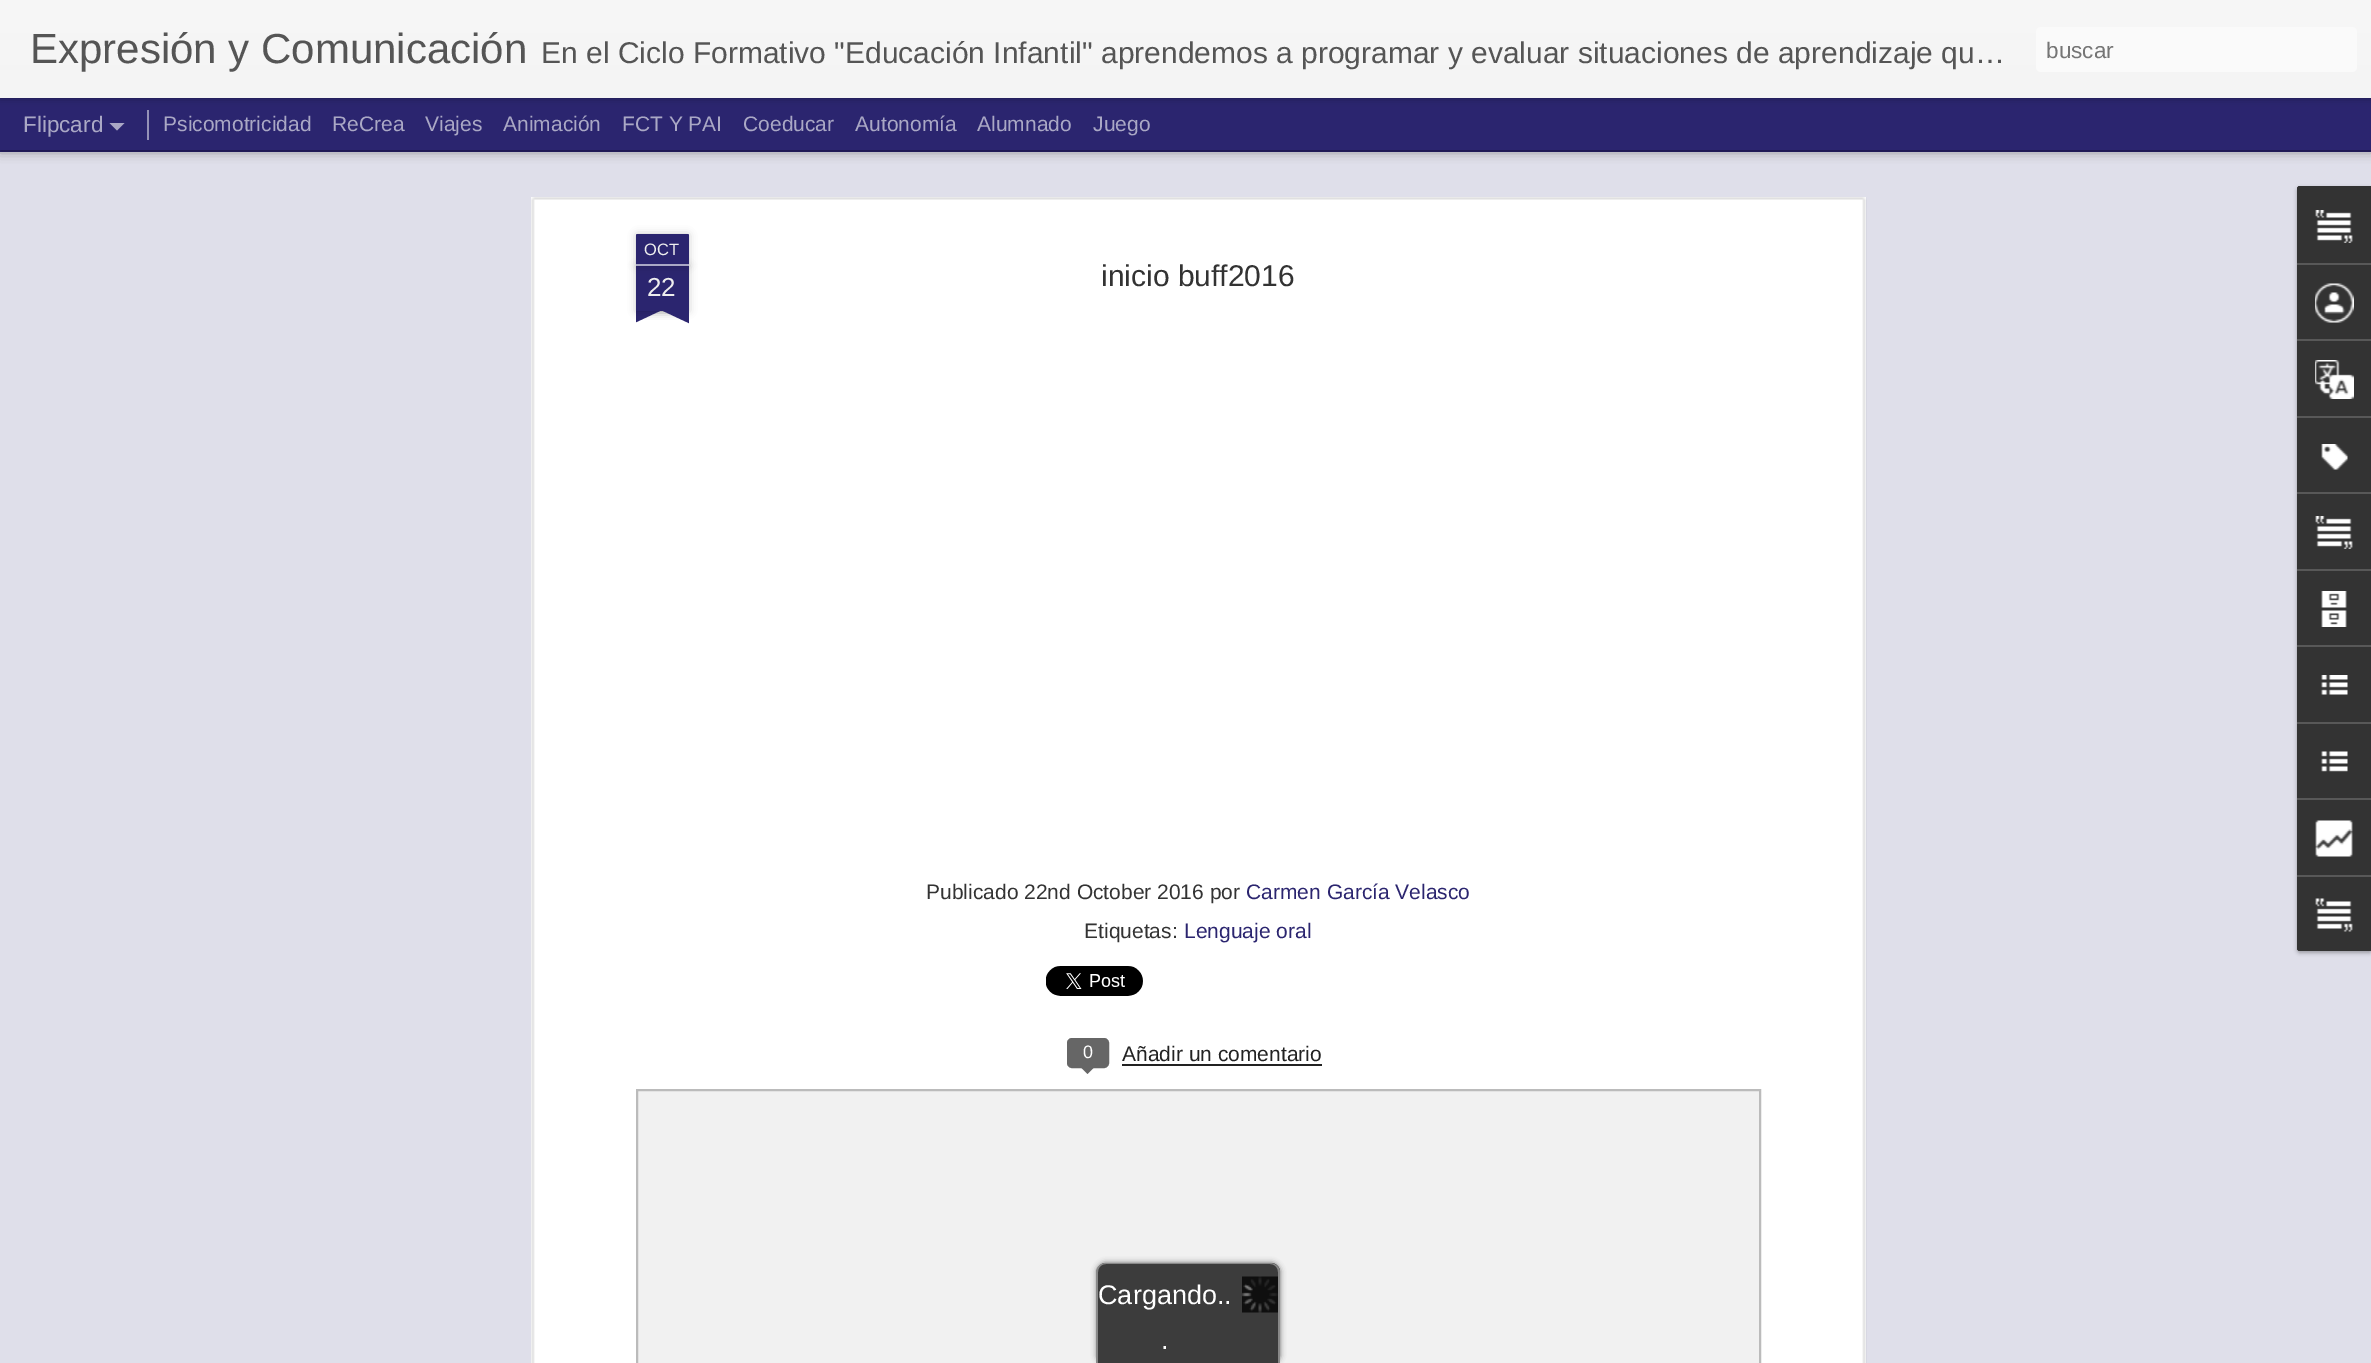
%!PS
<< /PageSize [2371 1363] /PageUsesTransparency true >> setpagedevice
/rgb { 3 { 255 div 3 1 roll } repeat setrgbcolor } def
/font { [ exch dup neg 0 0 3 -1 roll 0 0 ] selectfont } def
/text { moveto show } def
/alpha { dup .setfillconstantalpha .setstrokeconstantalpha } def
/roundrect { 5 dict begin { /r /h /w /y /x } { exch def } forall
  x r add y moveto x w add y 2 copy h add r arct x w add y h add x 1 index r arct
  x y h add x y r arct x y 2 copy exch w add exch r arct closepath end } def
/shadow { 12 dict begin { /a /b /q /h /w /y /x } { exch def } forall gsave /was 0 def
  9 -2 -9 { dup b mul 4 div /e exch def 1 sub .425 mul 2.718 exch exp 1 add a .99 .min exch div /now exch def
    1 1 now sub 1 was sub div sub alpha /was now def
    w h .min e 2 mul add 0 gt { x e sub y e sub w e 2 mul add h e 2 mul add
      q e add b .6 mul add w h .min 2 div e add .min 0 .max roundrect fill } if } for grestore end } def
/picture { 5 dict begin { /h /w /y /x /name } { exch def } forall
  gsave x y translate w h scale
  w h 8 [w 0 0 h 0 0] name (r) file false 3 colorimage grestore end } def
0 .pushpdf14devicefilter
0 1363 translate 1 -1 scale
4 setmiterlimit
43 37 111 rgb
0 0 2371 1363 rectfill
223 223 234 rgb
0 152 2371 1211 rectfill
0 0 0 rgb
0 98 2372 52 0 6 0.5 shadow
43 37 111 rgb
0 98 2371 52 rectfill
149 146 183 rgb
147 110 2 30 rectfill
0 0 0 rgb
0 0 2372 98 0 4 0.3 shadow
gsave 0 0 moveto 2371 0 rlineto 0 98 rlineto -2371 0 rlineto closepath clip newpath
<< /ShadingType 2 /ColorSpace /DeviceRGB /Coords [0 0 0 98] /Extend [true true] /Function << /FunctionType 2 /Domain [0 1] /C0 [0.969 0.969 0.969] /C1 [0.957 0.957 0.957] /N 1 >> >> shfill grestore
250 250 250 rgb
2036 27 321 45 5 roundrect fill
170 168 197 rgb
109.5 123 moveto 15 0 rlineto -7.5 7.5 rlineto closepath fill
255 255 255 rgb
531 197 1335 1166 rectfill
(img_01.rgb) 531 197 1336 1166 picture
0 0 0 rgb
636 266 53 45 0 4 0.2 shadow
43 37 111 rgb
636 266 53 45 rectfill
0 0 0 rgb
636 234 53 32 1.5 4 0.2 shadow
43 37 111 rgb
637.5 234 moveto 50 0 rlineto 1 0 1.5 0.5 1.5 1.5 rcurveto 0 30.5 rlineto -53 0 rlineto 0 -30.5 rlineto 0 -1 0.5 -1.5 1.5 -1.5 rcurveto closepath fill
170 168 197 rgb
636 264 53 2 rectfill
gsave
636 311 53 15 rectclip
0 0 0 rgb
623 296 75 15 0 4 0.2 shadow
grestore
gsave
636 311 53 15 rectclip
43 37 111 rgb
622 312 moveto 68 -32 rlineto 6 14 rlineto -68 32 rlineto closepath fill
grestore
gsave
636 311 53 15 rectclip
0 0 0 rgb
627 296 75 15 0 4 0.2 shadow
grestore
gsave
636 311 53 15 rectclip
43 37 111 rgb
633 280 moveto 68 32 rlineto -6 14 rlineto -68 -32 rlineto closepath fill
grestore
(img_02.rgb) 1046 966 97 30 picture
102 102 102 rgb
1068 1039 40 28 4 roundrect gsave fill grestore
2 setlinewidth
stroke
1080 1066.5 moveto 15 0 rlineto -7.5 7.5 rlineto closepath fill
34 34 34 rgb
1122 1064 200 2 rectfill
241 241 241 rgb
637 1090 moveto 1123 0 rlineto 0 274 rlineto -1123 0 rlineto closepath gsave fill grestore
187 187 187 rgb
stroke
0 0 0 rgb
2297 188 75 765 3 2 0.3 shadow
51 51 51 rgb
2300 186 moveto 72 0 rlineto 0 765 rlineto -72 0 rlineto -1.5 0 -3 -1.5 -3 -3 rcurveto 0 -759 rlineto 0 -1.5 1.5 -3 3 -3 rcurveto closepath fill
2300 186 moveto 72 0 rlineto 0 77 rlineto -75 0 rlineto 0 -74 rlineto 0 -1.5 1.5 -3 3 -3 rcurveto closepath fill
(img_03.rgb) 2315 210 38 33 picture
88 88 88 rgb
2297 263 74 2 rectfill
(img_04.rgb) 2315 283 39 40 picture
2297 339 74 2 rectfill
(img_05.rgb) 2315 360 39 39 picture
2297 416 74 2 rectfill
(img_06.rgb) 2321 444 27 26 picture
2297 492 74 2 rectfill
(img_03.rgb) 2315 516 38 33 picture
2297 569 74 2 rectfill
(img_07.rgb) 2321 591 26 36 picture
2297 645 74 2 rectfill
(img_08.rgb) 2321 675 27 20 picture
2297 722 74 2 rectfill
(img_09.rgb) 2321 751 27 21 picture
2297 798 74 2 rectfill
(img_10.rgb) 2315 820 38 37 picture
51 51 51 rgb
2297 875 moveto 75 0 rlineto 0 76 rlineto -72 0 rlineto -1.5 0 -3 -1.5 -3 -3 rcurveto closepath fill
88 88 88 rgb
2297 875 74 2 rectfill
(img_11.rgb) 2315 898 38 34 picture
99 99 99 rgb
1097 1263 183 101 9 3 1 shadow
60 60 60 rgb
1106 1263 moveto 165 0 rlineto 5 0 9 4 9 9 rcurveto 0 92 rlineto -183 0 rlineto 0 -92 rlineto 0 -5 4 -9 9 -9 rcurveto closepath fill
137 137 137 rgb
1106 1263 moveto 164 0 rlineto 5 0 10 4 10 9 rcurveto 0 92 rlineto -184 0 rlineto 0 -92 rlineto 0 -5 5 -9 10 -9 rcurveto closepath 1106 1264 moveto 164 0 rlineto 5 0 8 4 8 8 rcurveto 0 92 rlineto -180 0 rlineto 0 -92 rlineto 0 -4 3 -8 8 -8 rcurveto closepath eofill
(img_12.rgb) 1242 1276 36 37 picture
/LiberationSans-Regular 42 font
85 85 85 rgb
(Expresión y Comunicación) 30 63 text
/LiberationSans-Regular 30 font
(En el Ciclo Formativo "Educación Infantil" aprendemos a programar y evaluar situaciones de aprendizaje qu…) 541 63 text
/LiberationSans-Regular 22.5 font
117 117 117 rgb
(buscar) 2046 58 text
170 168 197 rgb
(Flipcard) 23 132 text
/LiberationSans-Regular 21 font
(Psicomotricidad) 163 131 text
(ReCrea) 332 131 text
(Viajes) 425 131 text
(Animación) 503 131 text
(FCT Y PAI) 622 131 text
(Coeducar) 743 131 text
(Autonomía) 855 131 text
(Alumnado) 977 131 text
(Juego) 1093 131 text
/LiberationSans-Regular 16.5 font
238 238 238 rgb
(OCT) 644 255 text
/LiberationSans-Regular 26 font
(22) 647 296 text
/LiberationSans-Regular 30 font
51 51 51 rgb
(inicio buff2016) 1101 286 text
/LiberationSans-Regular 21 font
(Publicado 22nd October 2016 por) 926 899 text
43 37 111 rgb
(Carmen García Velasco) 1246 899 text
51 51 51 rgb
(Etiquetas:) 1084 938 text
43 37 111 rgb
(Lenguaje oral) 1184 938 text
/LiberationSans-Regular 18 font
255 255 255 rgb
(0) 1083 1058 text
/LiberationSans-Regular 21 font
34 34 34 rgb
(Añadir un comentario) 1122 1061 text
/LiberationSans-Regular 27 font
255 255 255 rgb
(Cargando..) 1098 1304 text
(.) 1161 1349 text
.poppdf14devicefilter showpage
